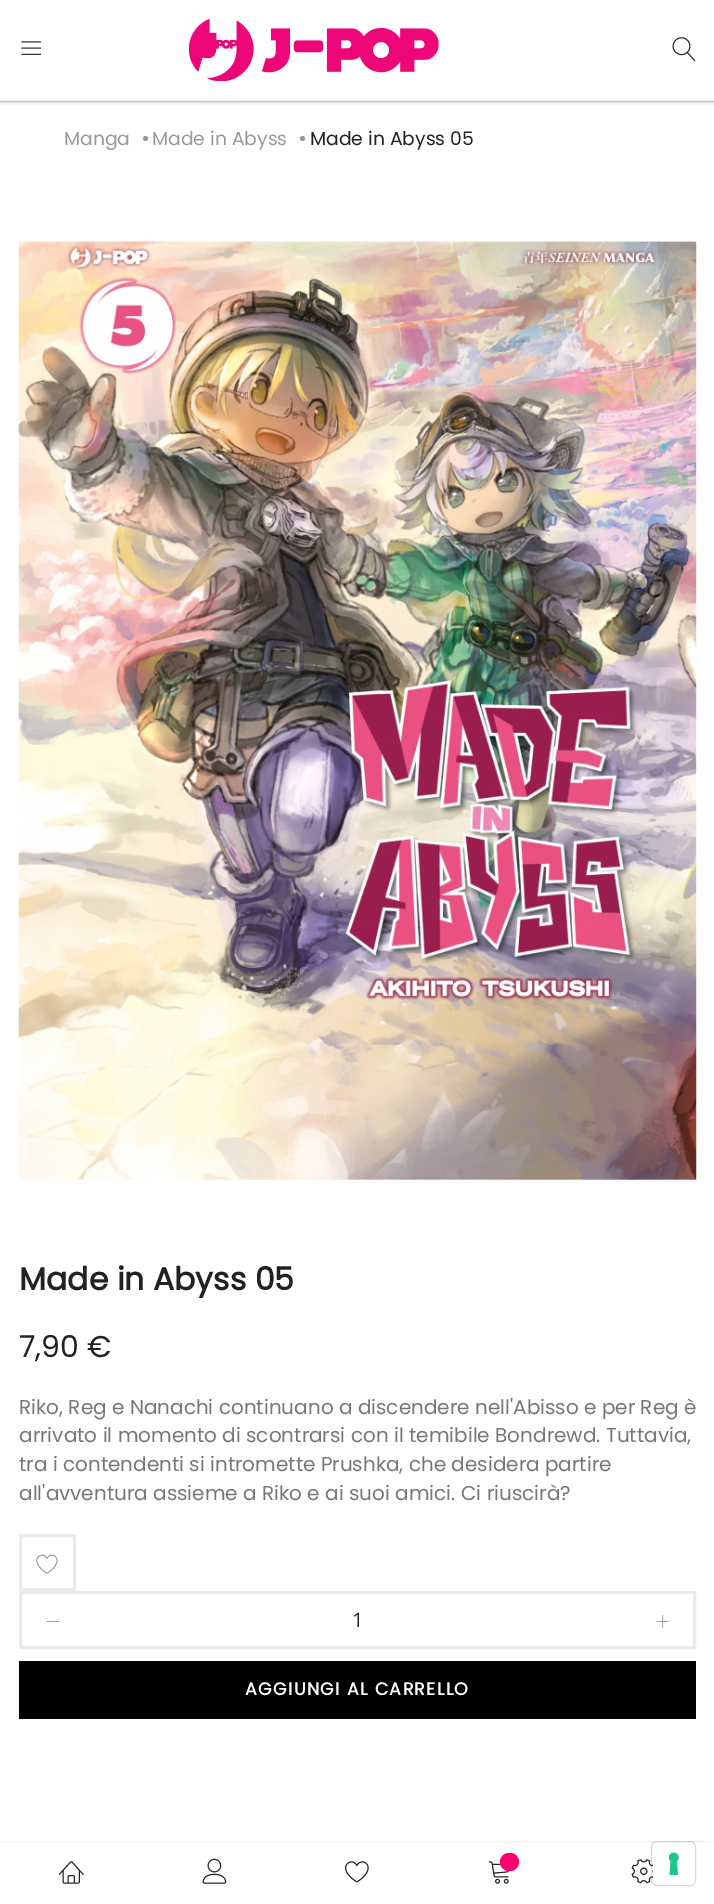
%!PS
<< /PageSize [714 1904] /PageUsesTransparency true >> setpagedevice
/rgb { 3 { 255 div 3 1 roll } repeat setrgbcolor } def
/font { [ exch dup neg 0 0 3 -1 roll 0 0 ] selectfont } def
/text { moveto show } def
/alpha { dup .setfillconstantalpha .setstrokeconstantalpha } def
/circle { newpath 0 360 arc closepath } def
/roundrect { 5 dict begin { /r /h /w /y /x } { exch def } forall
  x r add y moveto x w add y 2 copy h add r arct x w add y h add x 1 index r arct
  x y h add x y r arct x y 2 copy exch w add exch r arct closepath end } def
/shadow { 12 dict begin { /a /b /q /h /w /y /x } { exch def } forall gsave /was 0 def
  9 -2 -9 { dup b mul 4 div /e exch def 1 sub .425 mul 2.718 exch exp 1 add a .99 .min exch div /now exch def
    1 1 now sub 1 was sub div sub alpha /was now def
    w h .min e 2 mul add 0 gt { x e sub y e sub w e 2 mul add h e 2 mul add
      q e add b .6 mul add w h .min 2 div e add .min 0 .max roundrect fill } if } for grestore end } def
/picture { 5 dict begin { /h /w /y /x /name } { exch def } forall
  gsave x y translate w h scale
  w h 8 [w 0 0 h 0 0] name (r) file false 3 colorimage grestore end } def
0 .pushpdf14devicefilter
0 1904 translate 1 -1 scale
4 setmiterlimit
255 255 255 rgb
0 0 714 1904 rectfill
gsave
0 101 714 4 rectclip
117 117 117 rgb
0 0 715 101 0 2 1 shadow
grestore
234 234 234 rgb
0 100 714 1 rectfill
(img_01.rgb) 21 41 21 14 picture
(img_02.rgb) 189 19 250 62 picture
(img_03.rgb) 672 37 24 25 picture
238 238 238 rgb
0 1841 714 1 rectfill
(img_04.rgb) 58 1861 26 23 picture
(img_05.rgb) 202 1858 25 26 picture
(img_06.rgb) 345 1861 24 22 picture
(img_07.rgb) 488 1861 21 23 picture
255 0 113 rgb
500 1853 19 18 9 roundrect fill
(img_08.rgb) 631 1859 22 25 picture
153 153 153 rgb
145.5 138.5 2.5 circle fill
302.5 138.5 2.5 circle fill
(img_09.rgb) 18 241 679 939 picture
234 234 234 rgb
3 setlinewidth
20.5 1535.5 54 54 rectstroke
(img_10.rgb) 36 1554 22 20 picture
20.5 1592.5 674 55 rectstroke
(img_11.rgb) 46 1621 14 1 picture
(img_12.rgb) 656 1615 14 14 picture
0 0 0 rgb
19 1661 677 58 rectfill
0.15 alpha
1 setlinewidth
651.5 1841.5 44 44 5.5 roundrect stroke
1 alpha
255 255 255 rgb
653 1843 42 42 5 roundrect fill
(img_13.rgb) 668 1852 11 23 picture
/Poppins-Regular 18.75 font
153 153 153 rgb
(Manga) 64 145 text
(Made in Abyss) 152 145 text
34 34 34 rgb
(Made in Abyss 05) 310 145 text
/Poppins-Bold 31.5 font
(Made in Abyss 05) 19 1290 text
/Poppins-Regular 30 font
(7,90 €) 19 1357 text
/Poppins-Regular 20 font
119 119 119 rgb
(Riko, Reg e Nanachi continuano a discendere nell'Abisso e per Reg è) 19 1414 text
(arrivato il momento di scontrarsi con il temibile Bondrewd. Tuttavia,) 19 1442 text
(tra i contendenti si intromette Prushka, che desidera partire) 19 1471 text
(all'avventura assieme a Riko e ai suoi amici. Ci riuscirà?) 19 1500 text
/OpenSans-Regular 20 font
34 34 34 rgb
(1) 352 1627 text
/Poppins-Bold 17.5 font
255 255 255 rgb
245 1695 moveto 1.3 0 (AGGIUNGI AL CARRELLO) ashow
.poppdf14devicefilter showpage
